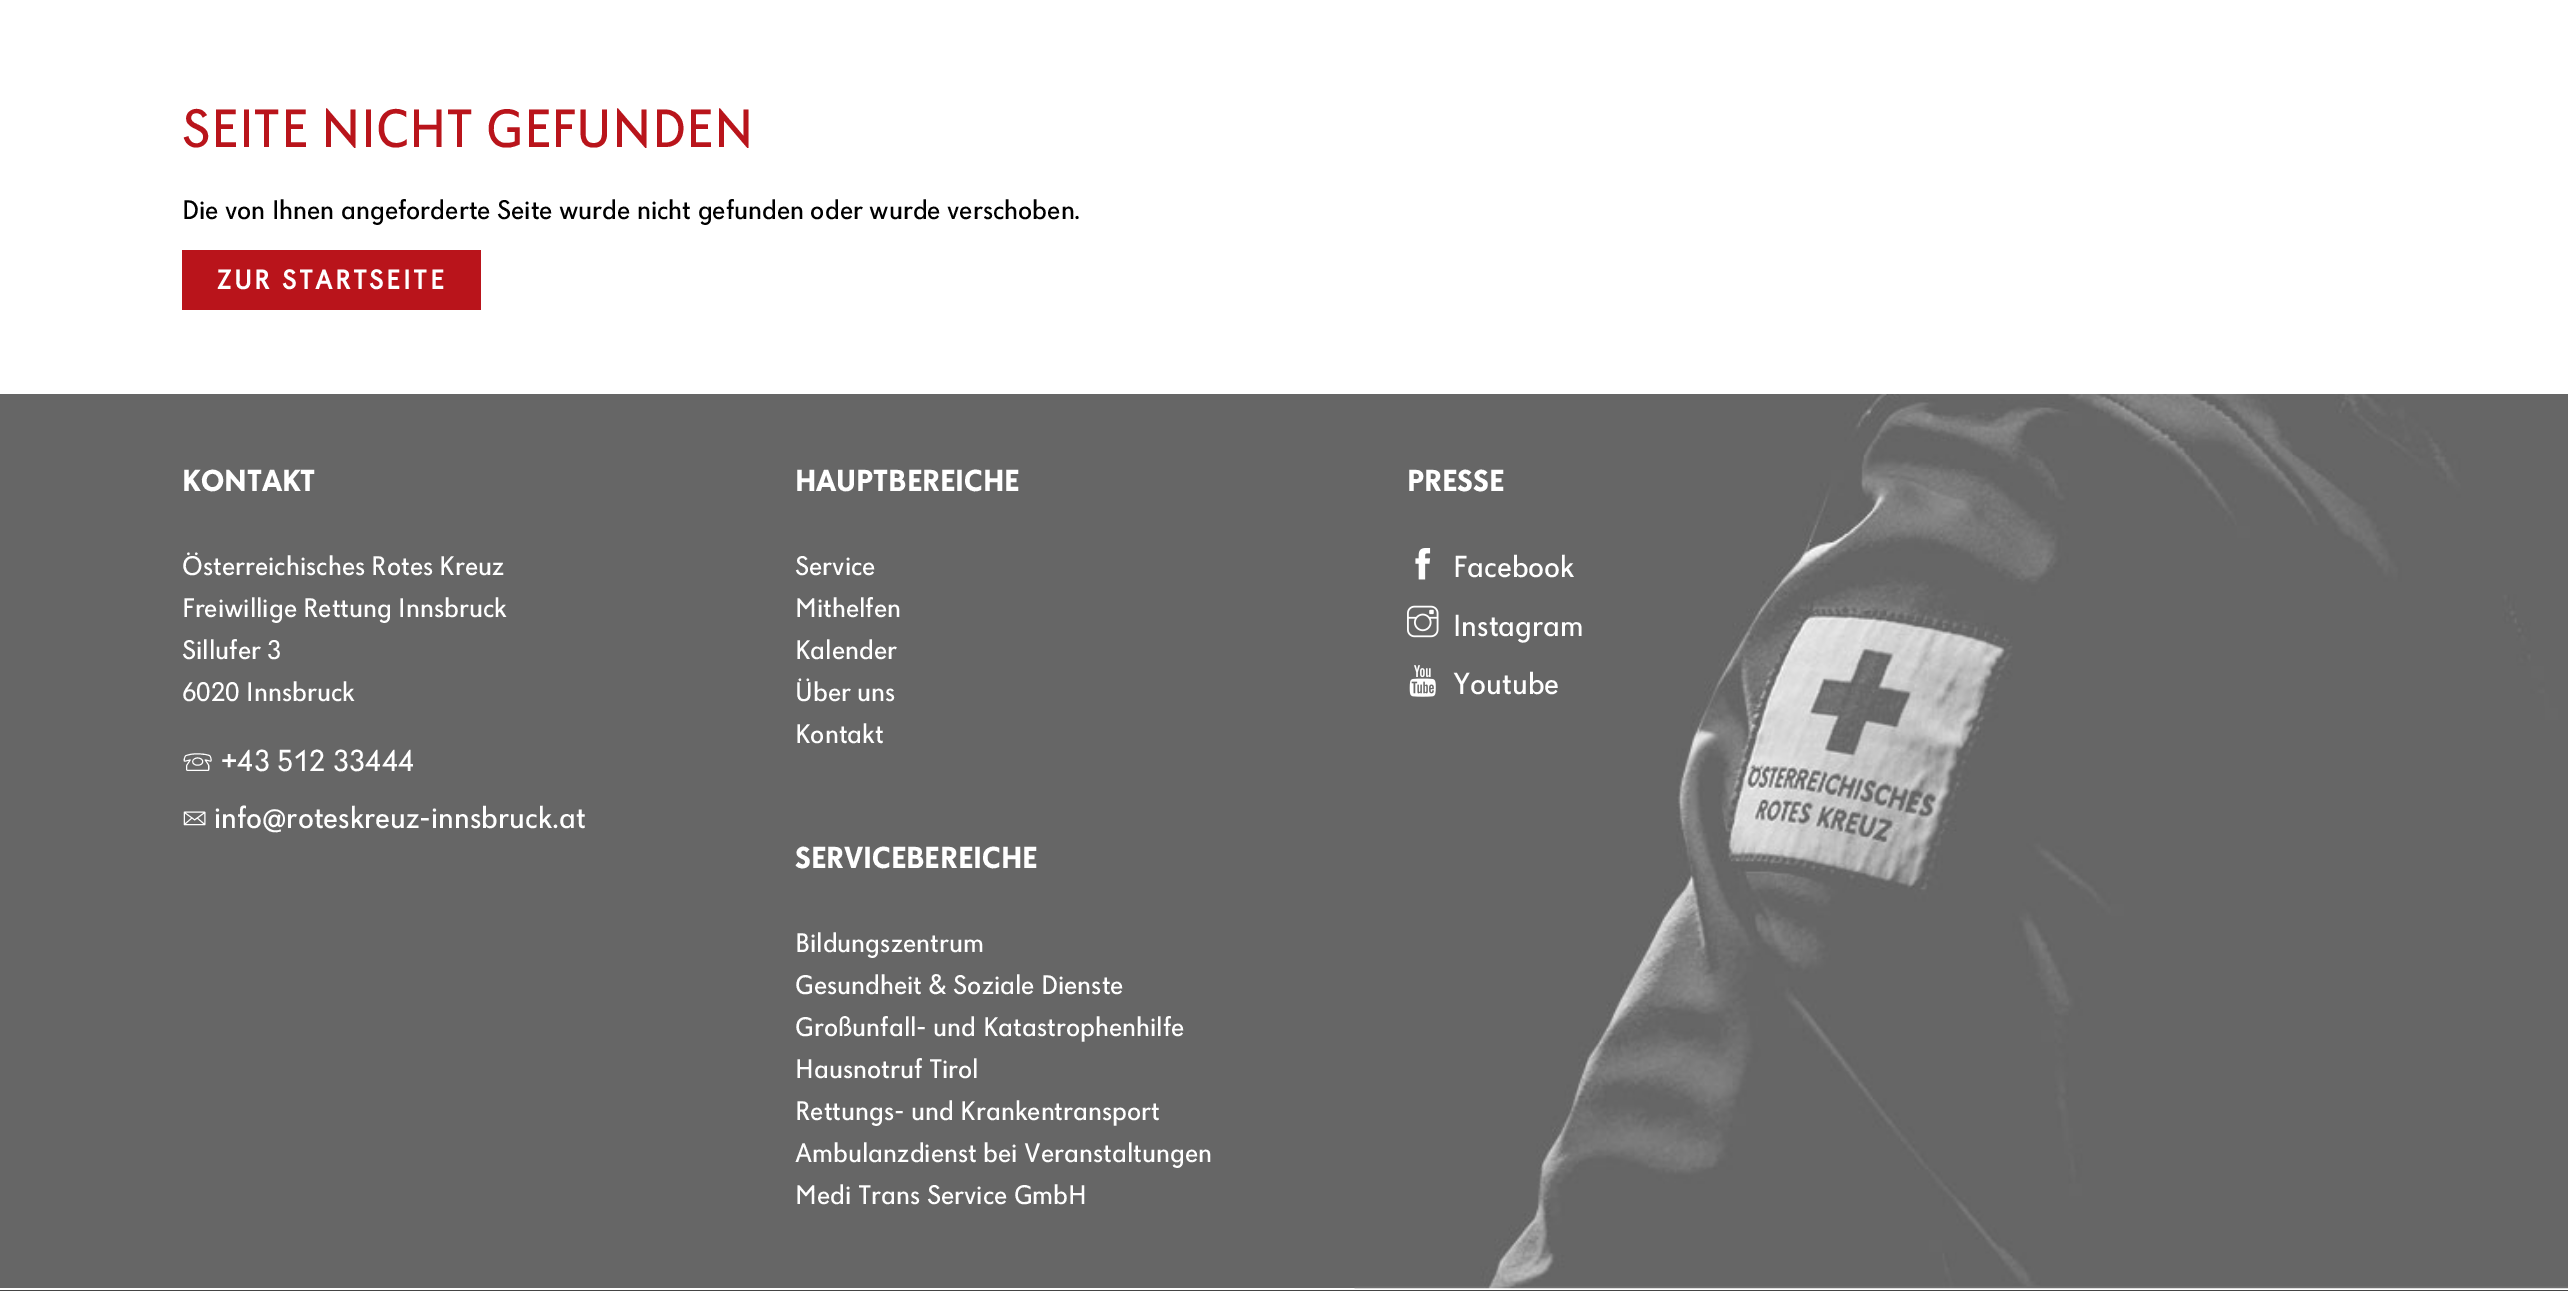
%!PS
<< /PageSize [2568 1291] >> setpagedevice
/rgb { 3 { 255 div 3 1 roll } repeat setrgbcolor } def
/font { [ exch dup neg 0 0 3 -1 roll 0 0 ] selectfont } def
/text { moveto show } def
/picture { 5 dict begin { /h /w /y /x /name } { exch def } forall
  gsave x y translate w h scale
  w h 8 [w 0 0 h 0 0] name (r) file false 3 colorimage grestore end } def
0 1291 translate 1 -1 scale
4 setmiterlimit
255 255 255 rgb
0 0 2568 1291 rectfill
185 20 27 rgb
182 250 299 60 rectfill
102 102 102 rgb
0 394 1355 894 rectfill
(img_01.rgb) 1354 394 1214 895 picture
(img_02.rgb) 1415 548 16 32 picture
(img_03.rgb) 1407 605 32 33 picture
(img_04.rgb) 1409 665 27 32 picture
68 68 68 rgb
0 1290 2568 1 rectfill
/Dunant-Regular 56 font
185 20 27 rgb
(SEITE NICHT GEFUNDEN) 182 147 text
/Dunant-Regular 28 font
0 0 0 rgb
(Die von Ihnen angeforderte Seite wurde nicht gefunden oder wurde verschoben.) 182 219 text
/Dunant-Bold 28 font
255 255 255 rgb
217 289 moveto 2.75 0 (ZUR STARTSEITE) ashow
/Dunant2-Bold 31.5 font
(KONTAKT) 182 491 text
/Dunant-Regular 28 font
(Österreichisches Rotes Kreuz) 182 575 text
(Freiwillige Rettung Innsbruck) 182 617 text
(Sillufer 3) 182 659 text
(6020 Innsbruck) 182 701 text
/Dunant2-Regular 31.5 font
(u) 182 771 text
/Dunant-Regular 31.5 font
(+43 512 33444) 221 771 text
/Dunant2-Regular 31.5 font
(r) 182 828 text
/Dunant-Regular 31.5 font
(info@roteskreuz-innsbruck.at) 214 828 text
/Dunant2-Bold 31.5 font
(HAUPTBEREICHE) 795 491 text
/Dunant-Regular 28 font
(Service) 795 575 text
(Mithelfen) 795 617 text
(Kalender) 795 659 text
(Über uns) 795 701 text
(Kontakt) 795 743 text
/Dunant2-Bold 31.5 font
(SERVICEBEREICHE) 795 868 text
/Dunant-Regular 28 font
(Bildungszentrum) 795 952 text
(Gesundheit & Soziale Dienste) 795 994 text
(Großunfall- und Katastrophenhilfe) 795 1036 text
(Hausnotruf Tirol) 795 1078 text
(Rettungs- und Krankentransport) 795 1120 text
(Ambulanzdienst bei Veranstaltungen) 795 1162 text
(Medi Trans Service GmbH) 795 1204 text
/Dunant2-Bold 31.5 font
(PRESSE) 1407 491 text
/Dunant-Regular 31.5 font
(Facebook) 1453 577 text
(Instagram) 1453 636 text
(Youtube) 1453 694 text
showpage
